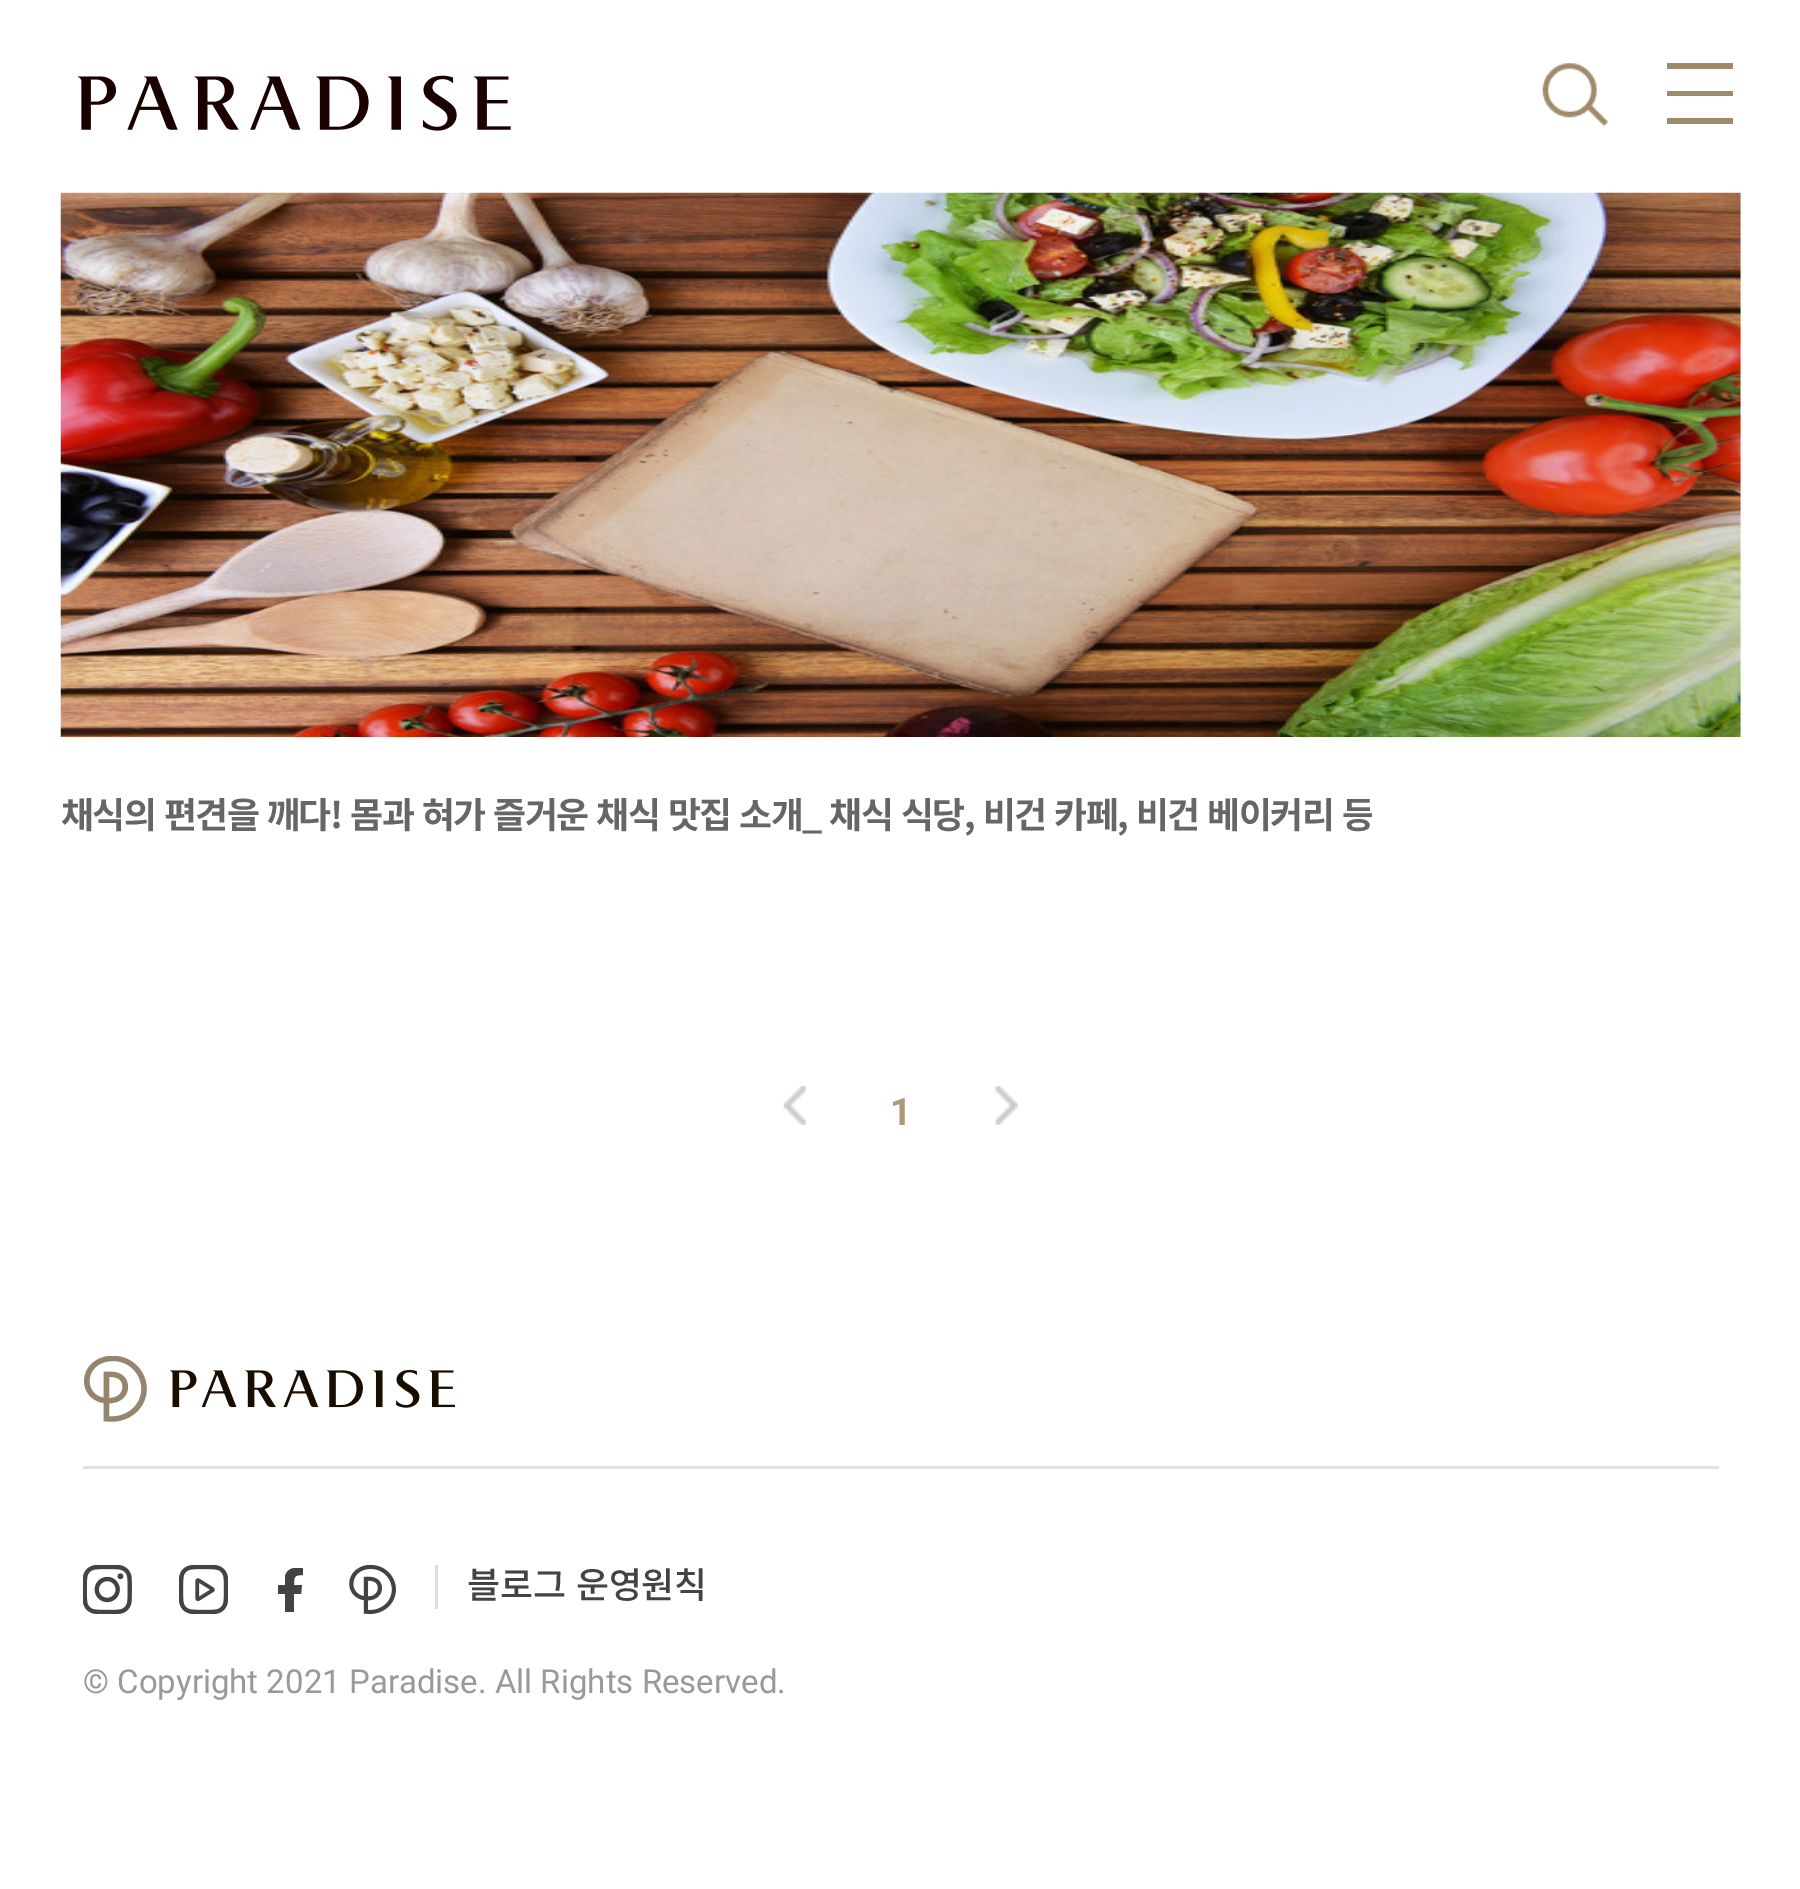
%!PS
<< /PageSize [1800 1889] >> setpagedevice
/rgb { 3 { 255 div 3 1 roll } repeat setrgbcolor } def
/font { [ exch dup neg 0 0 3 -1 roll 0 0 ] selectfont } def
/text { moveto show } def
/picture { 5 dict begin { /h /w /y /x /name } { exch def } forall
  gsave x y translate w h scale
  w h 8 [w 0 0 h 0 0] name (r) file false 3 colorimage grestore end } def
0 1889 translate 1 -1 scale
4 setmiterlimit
255 255 255 rgb
0 0 1800 1889 rectfill
(img_01.rgb) 77 75 434 56 picture
(img_02.rgb) 1542 63 67 64 picture
158 139 106 rgb
1667 63 66 6 rectfill
1667 91 66 5 rectfill
1667 118 66 6 rectfill
(img_03.rgb) 60 192 1681 545 picture
(img_04.rgb) 783 1086 23 39 picture
(img_05.rgb) 995 1086 23 39 picture
(img_06.rgb) 84 1356 371 66 picture
226 226 226 rgb
83 1466 1636 3 rectfill
(img_07.rgb) 83 1565 49 49 picture
(img_08.rgb) 179 1565 49 49 picture
gsave
278 1568 25 44 rectclip
67 67 67 rgb
301 1594 moveto 1 -9 rlineto -8 0 rlineto 0 -8 0 -10 9 -10 rcurveto 0 -7 rlineto -8 -1 -16 0 -18 8 rcurveto 0 9 rlineto -7 0 rlineto 0 9 rlineto 7 0 rlineto 0 20 rlineto 9 0 rlineto 0 -20 rlineto closepath fill
grestore
(img_09.rgb) 349 1565 47 49 picture
222 222 222 rgb
435 1565 3 44 rectfill
gsave
61 787 1311 55 rectclip
/NotoSansKR-Bold 35.75 font
102 102 102 rgb
61 828 moveto 1.9 0 32 -1.43 0 (채식의 편견을 깨다! 몸과 혀가 즐거운 채식 맛집 소개_ 채식 식당, 비건 카페, 비건 베이커리 등) awidthshow
grestore
/Roboto-Bold 38 font
170 153 124 rgb
890 1125 moveto -1 0 (1) ashow
/NotoSansKR-Medium 35.75 font
67 67 67 rgb
467 1598 moveto 2 0 32 (블로그 운영원칙) widthshow
/Roboto-Regular 33 font
153 153 153 rgb
(© Copyright 2021 Paradise. All Rights Reserved.) 83 1693 text
showpage
